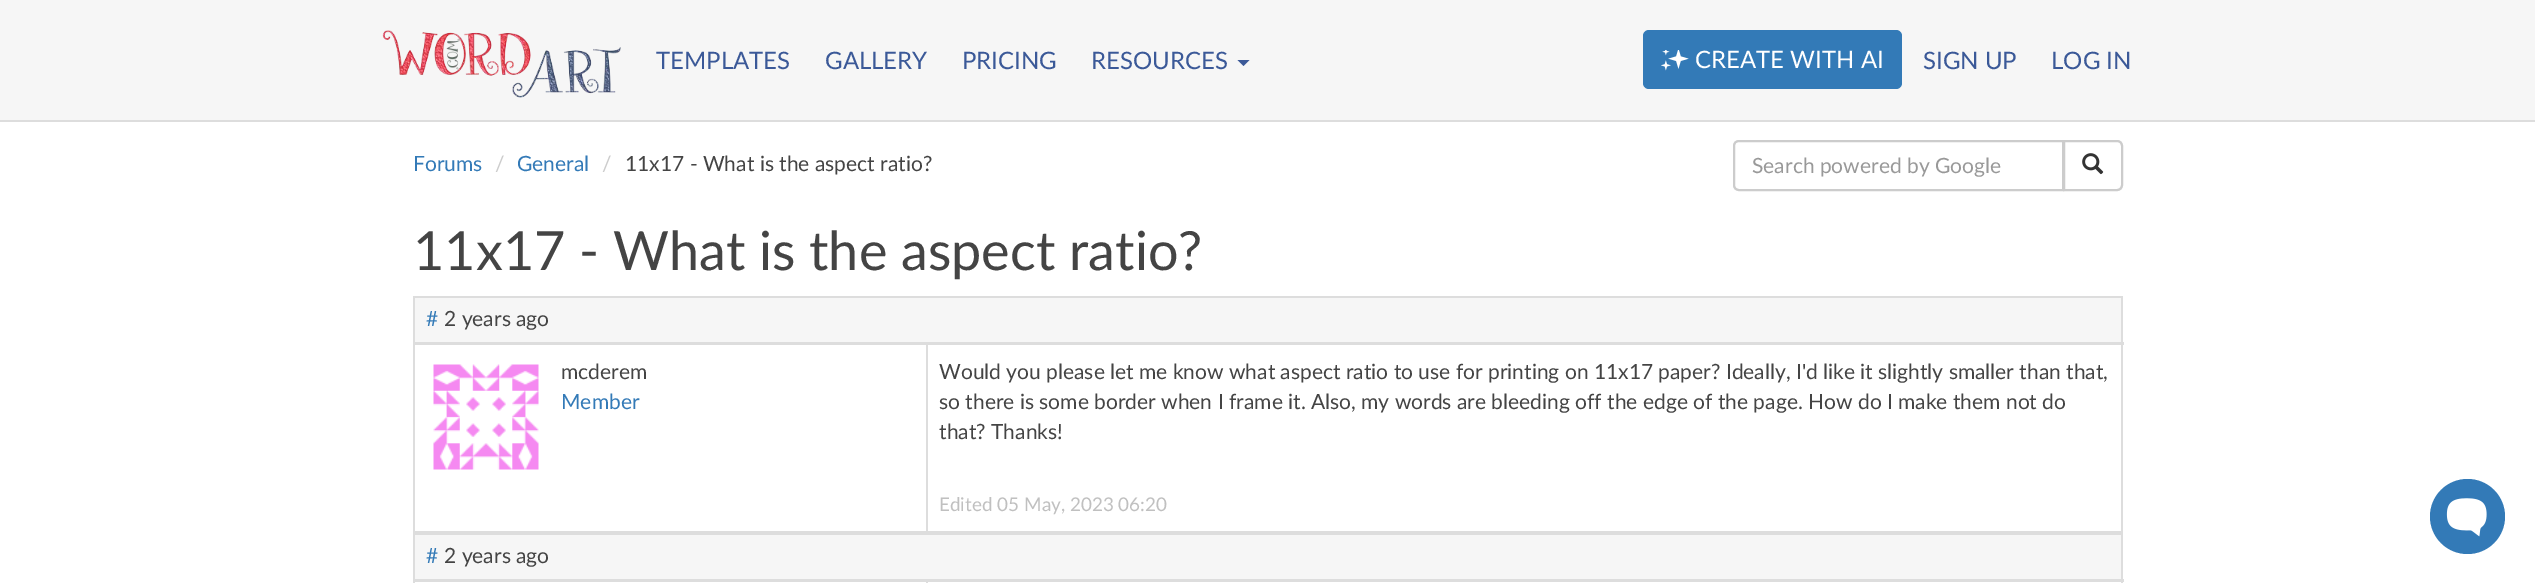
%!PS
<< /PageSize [2535 583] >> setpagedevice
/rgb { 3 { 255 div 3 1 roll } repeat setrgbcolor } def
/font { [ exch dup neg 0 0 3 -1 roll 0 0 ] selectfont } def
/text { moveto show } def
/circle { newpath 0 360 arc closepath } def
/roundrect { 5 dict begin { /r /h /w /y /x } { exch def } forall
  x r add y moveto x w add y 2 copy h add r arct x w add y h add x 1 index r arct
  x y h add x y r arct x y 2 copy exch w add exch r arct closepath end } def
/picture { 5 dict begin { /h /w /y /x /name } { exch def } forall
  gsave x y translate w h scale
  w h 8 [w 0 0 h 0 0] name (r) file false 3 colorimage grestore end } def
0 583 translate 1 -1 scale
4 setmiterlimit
255 255 255 rgb
0 0 2535 583 rectfill
246 246 246 rgb
0 0 2535 120 rectfill
221 221 221 rgb
0 120 2535 2 rectfill
(img_01.rgb) 382 30 239 68 picture
59 89 152 rgb
1237.5 60 moveto 12 0 rlineto -6 6 rlineto closepath fill
51 122 183 rgb
1643 30 259 59 6 roundrect fill
(img_02.rgb) 1661 50 28 21 picture
204 204 204 rgb
2 setlinewidth
1739 141 moveto 324 0 rlineto 0 49 rlineto -324 0 rlineto -3 0 -5 -2 -5 -5 rcurveto 0 -39 rlineto 0 -3 2 -5 5 -5 rcurveto closepath stroke
255 255 255 rgb
2064 141 moveto 53 0 rlineto 3 0 5 2 5 5 rcurveto 0 39 rlineto 0 3 -2 5 -5 5 rcurveto -53 0 rlineto closepath gsave fill grestore
204 204 204 rgb
stroke
(img_03.rgb) 2082 153 22 22 picture
221 221 221 rgb
413 296 1710 2 rectfill
2121 296 2 237 rectfill
413 531 1710 4 rectfill
413 296 2 287 rectfill
246 246 246 rgb
415 298 1706 44 rectfill
221 221 221 rgb
926 342 2 191 rectfill
413 342 1711 3 rectfill
(img_04.rgb) 433 364 106 106 picture
2121 533 2 50 rectfill
246 246 246 rgb
415 535 1706 44 rectfill
221 221 221 rgb
926 579 2 4 rectfill
413 579 1711 3 rectfill
51 122 183 rgb
2467.5 516.5 37.5 circle fill
(img_05.rgb) 2446 498 41 39 picture
/Lato-Regular 24 font
59 89 152 rgb
(TEMPLATES) 656 69 text
(GALLERY) 825 69 text
(PRICING) 962 69 text
(RESOURCES) 1091 69 text
255 255 255 rgb
(CREATE WITH AI) 1695 68 text
59 89 152 rgb
(SIGN UP) 1923 69 text
(LOG IN) 2051 69 text
/Lato-Regular 21 font
51 122 183 rgb
(Forums) 413 171 text
204 204 204 rgb
(/) 495 171 text
51 122 183 rgb
(General) 517 171 text
204 204 204 rgb
(/) 602 171 text
68 68 68 rgb
(11x17 - What is the aspect ratio?) 625 171 text
153 153 153 rgb
(Search powered by Google) 1752 173 text
/Lato-Regular 54 font
68 68 68 rgb
(11x17 - What is the aspect ratio?) 413 270 text
/Lato-Regular 21 font
51 122 183 rgb
(#) 426 326 text
68 68 68 rgb
(2 years ago) 444 326 text
(mcderem) 561 379 text
51 122 183 rgb
(Member) 561 409 text
68 68 68 rgb
(Would you please let me know what aspect ratio to use for printing on 11x17 paper? Ideally, I'd like it slightly smaller than that,) 939 379 text
(so there is some border when I frame it. Also, my words are bleeding off the edge of the page. How do I make them not do) 939 409 text
(that? Thanks!) 939 439 text
/Lato-Regular 18.9 font
192 192 192 rgb
(Edited 05 May, 2023 06:20) 939 511 text
/Lato-Regular 21 font
51 122 183 rgb
(#) 426 563 text
68 68 68 rgb
(2 years ago) 444 563 text
showpage
